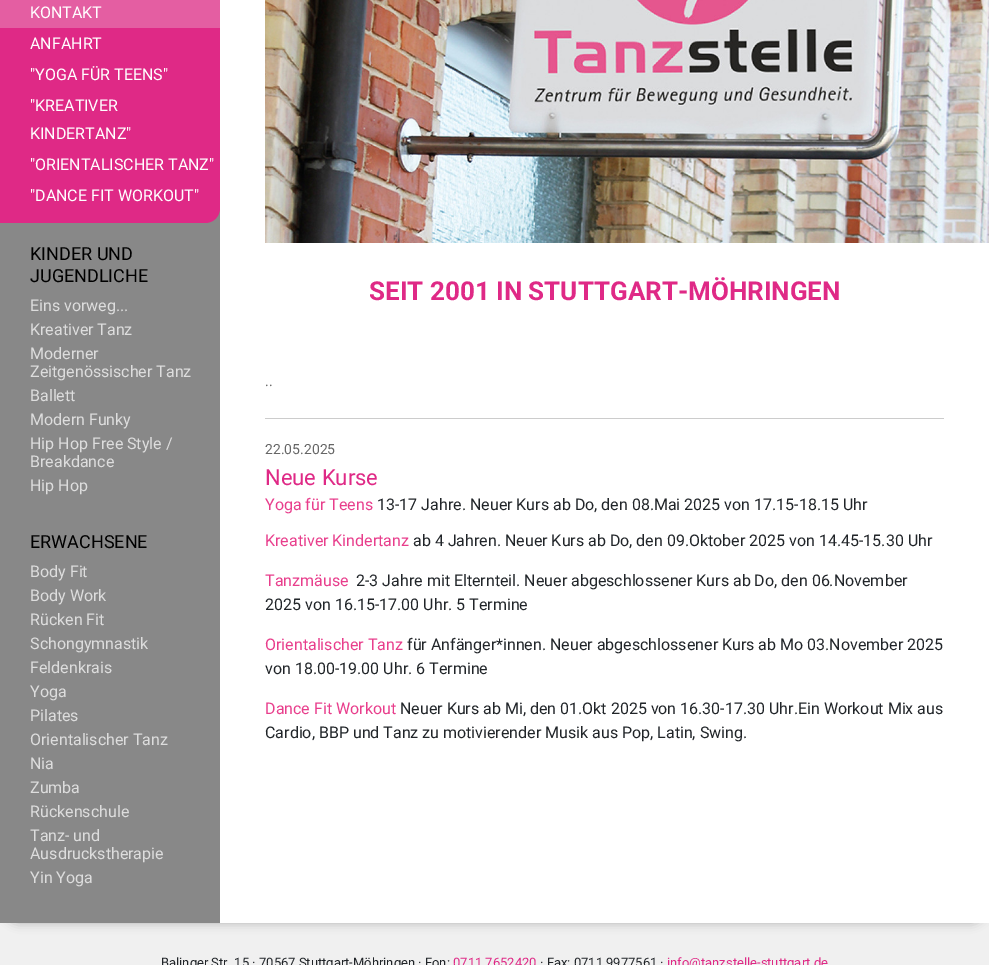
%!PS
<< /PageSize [989 965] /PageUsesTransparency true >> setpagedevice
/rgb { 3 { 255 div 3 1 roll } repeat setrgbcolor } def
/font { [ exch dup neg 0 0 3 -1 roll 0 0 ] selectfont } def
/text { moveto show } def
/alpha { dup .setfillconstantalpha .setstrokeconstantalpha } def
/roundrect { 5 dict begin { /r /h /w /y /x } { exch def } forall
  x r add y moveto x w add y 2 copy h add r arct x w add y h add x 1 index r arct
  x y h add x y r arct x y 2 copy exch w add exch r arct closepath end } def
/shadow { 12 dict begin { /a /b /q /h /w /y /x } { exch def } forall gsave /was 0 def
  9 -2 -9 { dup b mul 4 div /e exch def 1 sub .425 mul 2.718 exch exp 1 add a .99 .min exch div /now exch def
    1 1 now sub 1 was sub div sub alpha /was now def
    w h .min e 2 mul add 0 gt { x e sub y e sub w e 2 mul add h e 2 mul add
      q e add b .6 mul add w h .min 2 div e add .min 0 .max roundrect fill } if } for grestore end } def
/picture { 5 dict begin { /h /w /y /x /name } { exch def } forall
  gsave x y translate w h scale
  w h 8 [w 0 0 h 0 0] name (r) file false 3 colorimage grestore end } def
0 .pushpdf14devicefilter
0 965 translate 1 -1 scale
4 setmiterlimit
240 240 240 rgb
0 0 989 965 rectfill
0 0 0 rgb
3 723 984 200 17 5 0.25 shadow
255 255 255 rgb
220 0 769 923 rectfill
136 136 136 rgb
0 208 220 715 rectfill
223 41 134 rgb
-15 -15 moveto 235 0 rlineto 0 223 rlineto 0 8.5 -6.5 15 -15 15 rcurveto -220 0 rlineto closepath fill
228 94 162 rgb
0 0 220 28 rectfill
(img_01.rgb) 265 0 724 243 picture
204 204 204 rgb
265 418 679 1 rectfill
/Roboto-Regular 16 font
255 255 255 rgb
(KONTAKT) 30 18 text
(ANFAHRT) 30 49 text
("YOGA FÜR TEENS") 30 80 text
("KREATIVER) 30 111 text
(KINDERTANZ") 30 139 text
("ORIENTALISCHER TANZ") 30 170 text
("DANCE FIT WORKOUT") 30 201 text
/Roboto-Regular 18 font
0 0 0 rgb
(KINDER UND) 30 260 text
(JUGENDLICHE) 30 282 text
/Roboto-Regular 16 font
221 221 221 rgb
(Eins vorweg...) 30 311 text
(Kreativer Tanz) 30 335 text
(Moderner) 30 359 text
(Zeitgenössischer Tanz) 30 377 text
(Ballett) 30 401 text
(Modern Funky) 30 425 text
(Hip Hop Free Style /) 30 449 text
(Breakdance) 30 467 text
(Hip Hop) 30 491 text
/Roboto-Regular 18 font
0 0 0 rgb
(ERWACHSENE) 30 548 text
/Roboto-Regular 16 font
221 221 221 rgb
(Body Fit) 30 577 text
(Body Work) 30 601 text
(Rücken Fit) 30 625 text
(Schongymnastik) 30 649 text
(Feldenkrais) 30 673 text
(Yoga) 30 697 text
(Pilates) 30 721 text
(Orientalischer Tanz) 30 745 text
(Nia) 30 769 text
(Zumba) 30 793 text
(Rückenschule) 30 817 text
(Tanz- und) 30 841 text
(Ausdruckstherapie) 30 859 text
(Yin Yoga) 30 883 text
/Roboto-Bold 26 font
223 41 134 rgb
(SEIT 2001 IN STUTTGART-MÖHRINGEN) 369 300 text
/Roboto-Regular 14 font
102 102 102 rgb
(..) 265 386 text
(22.05.2025) 265 454 text
/Roboto-Regular 22 font
223 41 134 rgb
(Neue Kurse) 265 485 text
/Roboto-Regular 16 font
232 62 140 rgb
(Yoga für Teens) 265 510 text
33 37 41 rgb
(13-17 Jahre. Neuer Kurs ab Do, den 08.Mai 2025 von 17.15-18.15 Uhr) 377 510 text
232 62 140 rgb
(Kreativer Kindertanz) 265 546 text
33 37 41 rgb
(ab 4 Jahren. Neuer Kurs ab Do, den 09.Oktober 2025 von 14.45-15.30 Uhr) 413 546 text
232 62 140 rgb
(Tanzmäuse) 265 586 text
33 37 41 rgb
(2-3 Jahre mit Elternteil. Neuer abgeschlossener Kurs ab Do, den 06.November) 356 586 text
(2025 von 16.15-17.00 Uhr. 5 Termine) 265 610 text
232 62 140 rgb
(Orientalischer Tanz) 265 650 text
33 37 41 rgb
(für Anfänger*innen. Neuer abgeschlossener Kurs ab Mo 03.November 2025) 407 650 text
(von 18.00-19.00 Uhr. 6 Termine) 265 674 text
232 62 140 rgb
(Dance Fit Workout) 265 714 text
33 37 41 rgb
(Neuer Kurs ab Mi, den 01.Okt 2025 von 16.30-17.30 Uhr.Ein Workout Mix aus) 400 714 text
(Cardio, BBP und Tanz zu motivierender Musik aus Pop, Latin, Swing.) 265 738 text
/Roboto-Regular 13 font
(Balinger Str. 15 · 70567 Stuttgart-Möhringen · Fon:) 161 967 text
223 41 134 rgb
(0711 7652420) 453 967 text
33 37 41 rgb
(· Fax: 0711 9977561 ·) 540 967 text
223 41 134 rgb
(info@tanzstelle-stuttgart.de) 667 967 text
.poppdf14devicefilter showpage
